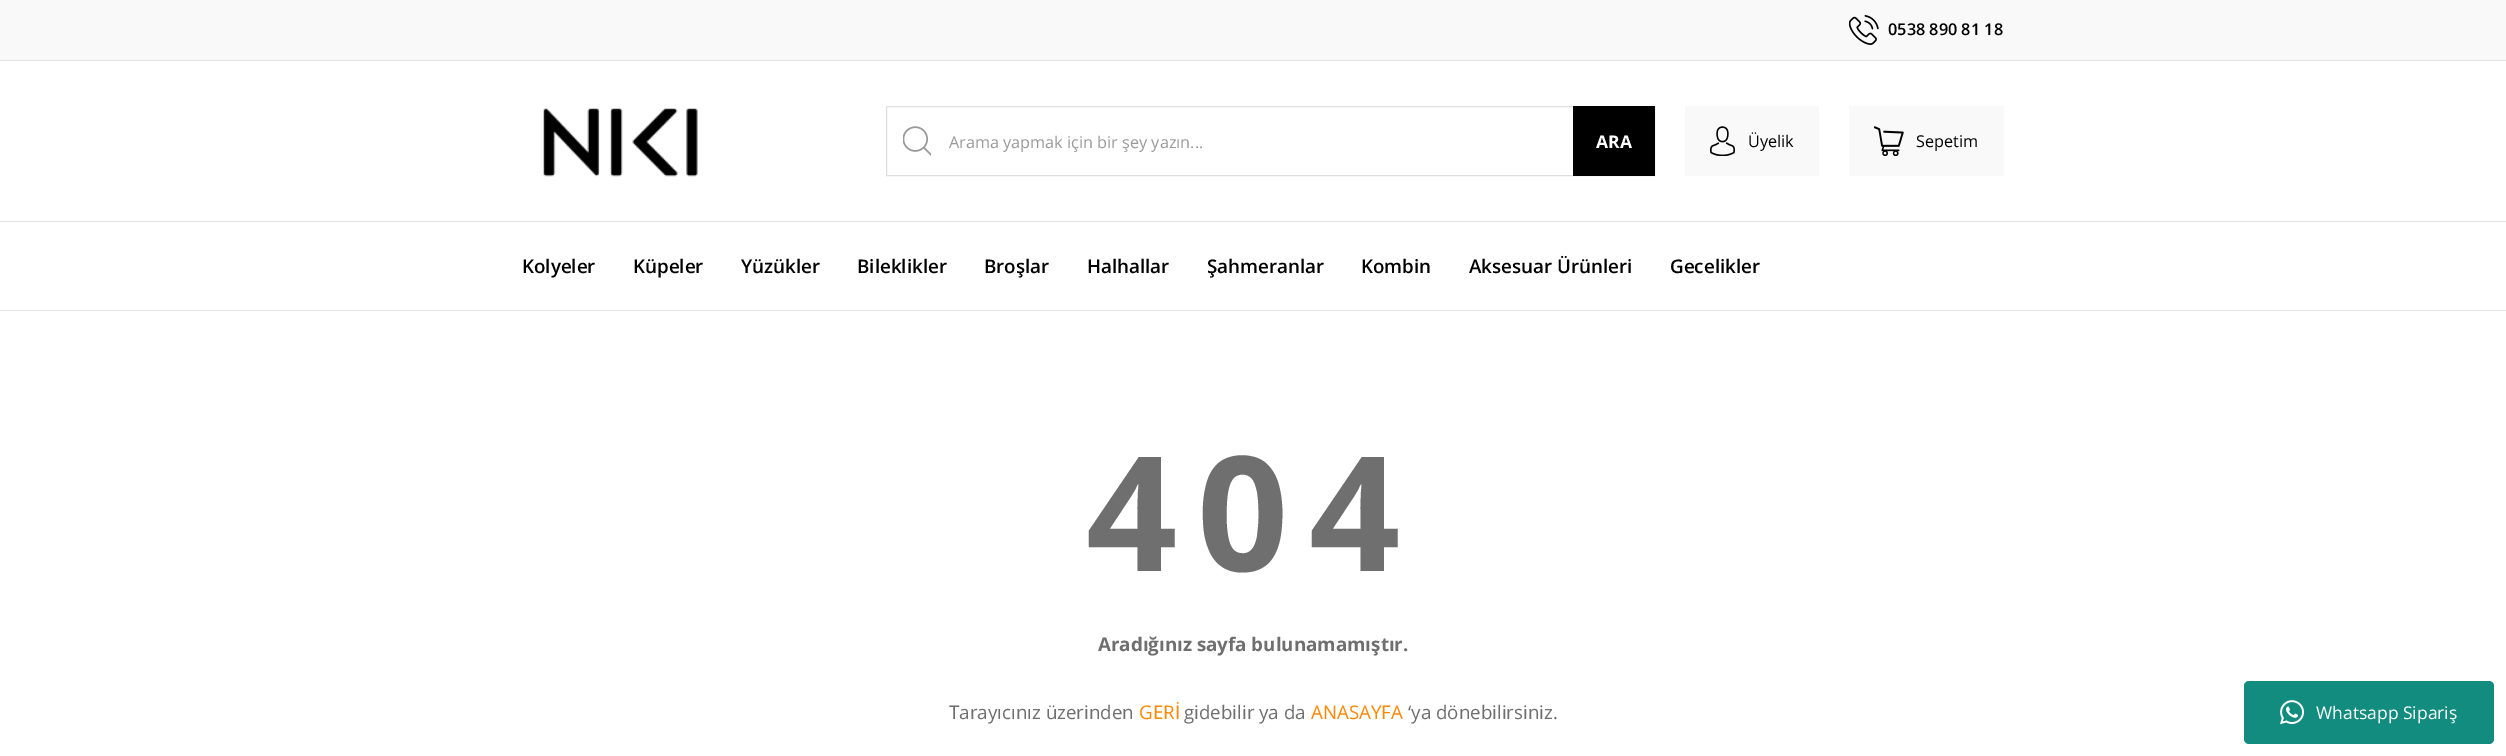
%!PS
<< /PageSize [2506 756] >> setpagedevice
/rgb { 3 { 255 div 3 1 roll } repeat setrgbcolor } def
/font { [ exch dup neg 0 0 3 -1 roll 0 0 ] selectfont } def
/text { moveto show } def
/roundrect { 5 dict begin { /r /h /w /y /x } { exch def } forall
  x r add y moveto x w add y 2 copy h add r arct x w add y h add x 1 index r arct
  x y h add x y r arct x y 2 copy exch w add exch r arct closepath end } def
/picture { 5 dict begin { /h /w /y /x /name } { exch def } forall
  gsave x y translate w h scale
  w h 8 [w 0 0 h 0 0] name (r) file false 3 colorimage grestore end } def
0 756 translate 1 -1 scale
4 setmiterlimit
255 255 255 rgb
0 0 2506 756 rectfill
249 249 249 rgb
0 0 2506 60 rectfill
226 226 226 rgb
0 60 2506 1 rectfill
(img_01.rgb) 1849 15 30 30 picture
(img_02.rgb) 543 108 155 69 picture
223 223 223 rgb
886.5 106.5 768 69 rectstroke
(img_03.rgb) 903 126 28 30 picture
0 0 0 rgb
1573 106 82 70 rectfill
249 249 249 rgb
1685 106 134 70 rectfill
(img_04.rgb) 1710 126 25 30 picture
1849 106 155 70 rectfill
(img_05.rgb) 1874 126 30 30 picture
226 226 226 rgb
0 221 2506 1 rectfill
0 310 2506 1 rectfill
18 140 126 rgb
2244 681 250 63 5 roundrect fill
(img_06.rgb) 2280 700 25 25 picture
/OpenSans-SemiBold 16.25 font
0 0 0 rgb
(0538 890 81 18) 1888 35 text
/OpenSans-Regular 16.25 font
153 153 153 rgb
(Arama yapmak için bir şey yazın...) 949 148 text
/OpenSans-Bold 17.5 font
255 255 255 rgb
(ARA) 1596 148 text
/OpenSans-Regular 16.25 font
0 0 0 rgb
(Üyelik) 1748 147 text
(Sepetim) 1916 147 text
/OpenSans-SemiBold 18.75 font
(Kolyeler) 522 273 text
(Küpeler) 633 273 text
(Yüzükler) 741 273 text
(Bileklikler) 857 273 text
(Broşlar) 984 273 text
(Halhallar) 1087 273 text
(Şahmeranlar) 1207 273 text
(Kombin) 1361 273 text
(Aksesuar Ürünleri) 1469 273 text
(Gecelikler) 1670 273 text
/OpenSans-Bold 160 font
111 111 111 rgb
1086 571 moveto 20 0 (404) ashow
/OpenSans-Bold 18.75 font
(Aradığınız sayfa bulunamamıştır.) 1098 651 text
/OpenSans-Regular 18.75 font
(Tarayıcınız üzerinden) 949 719 text
255 136 0 rgb
(GERİ) 1139 719 text
111 111 111 rgb
(gidebilir ya da) 1184 719 text
255 136 0 rgb
(ANASAYFA) 1311 719 text
111 111 111 rgb
(‘ya dönebilirsiniz.) 1408 719 text
/OpenSans-Regular 17.5 font
255 255 255 rgb
(Whatsapp Sipariş) 2316 719 text
showpage
